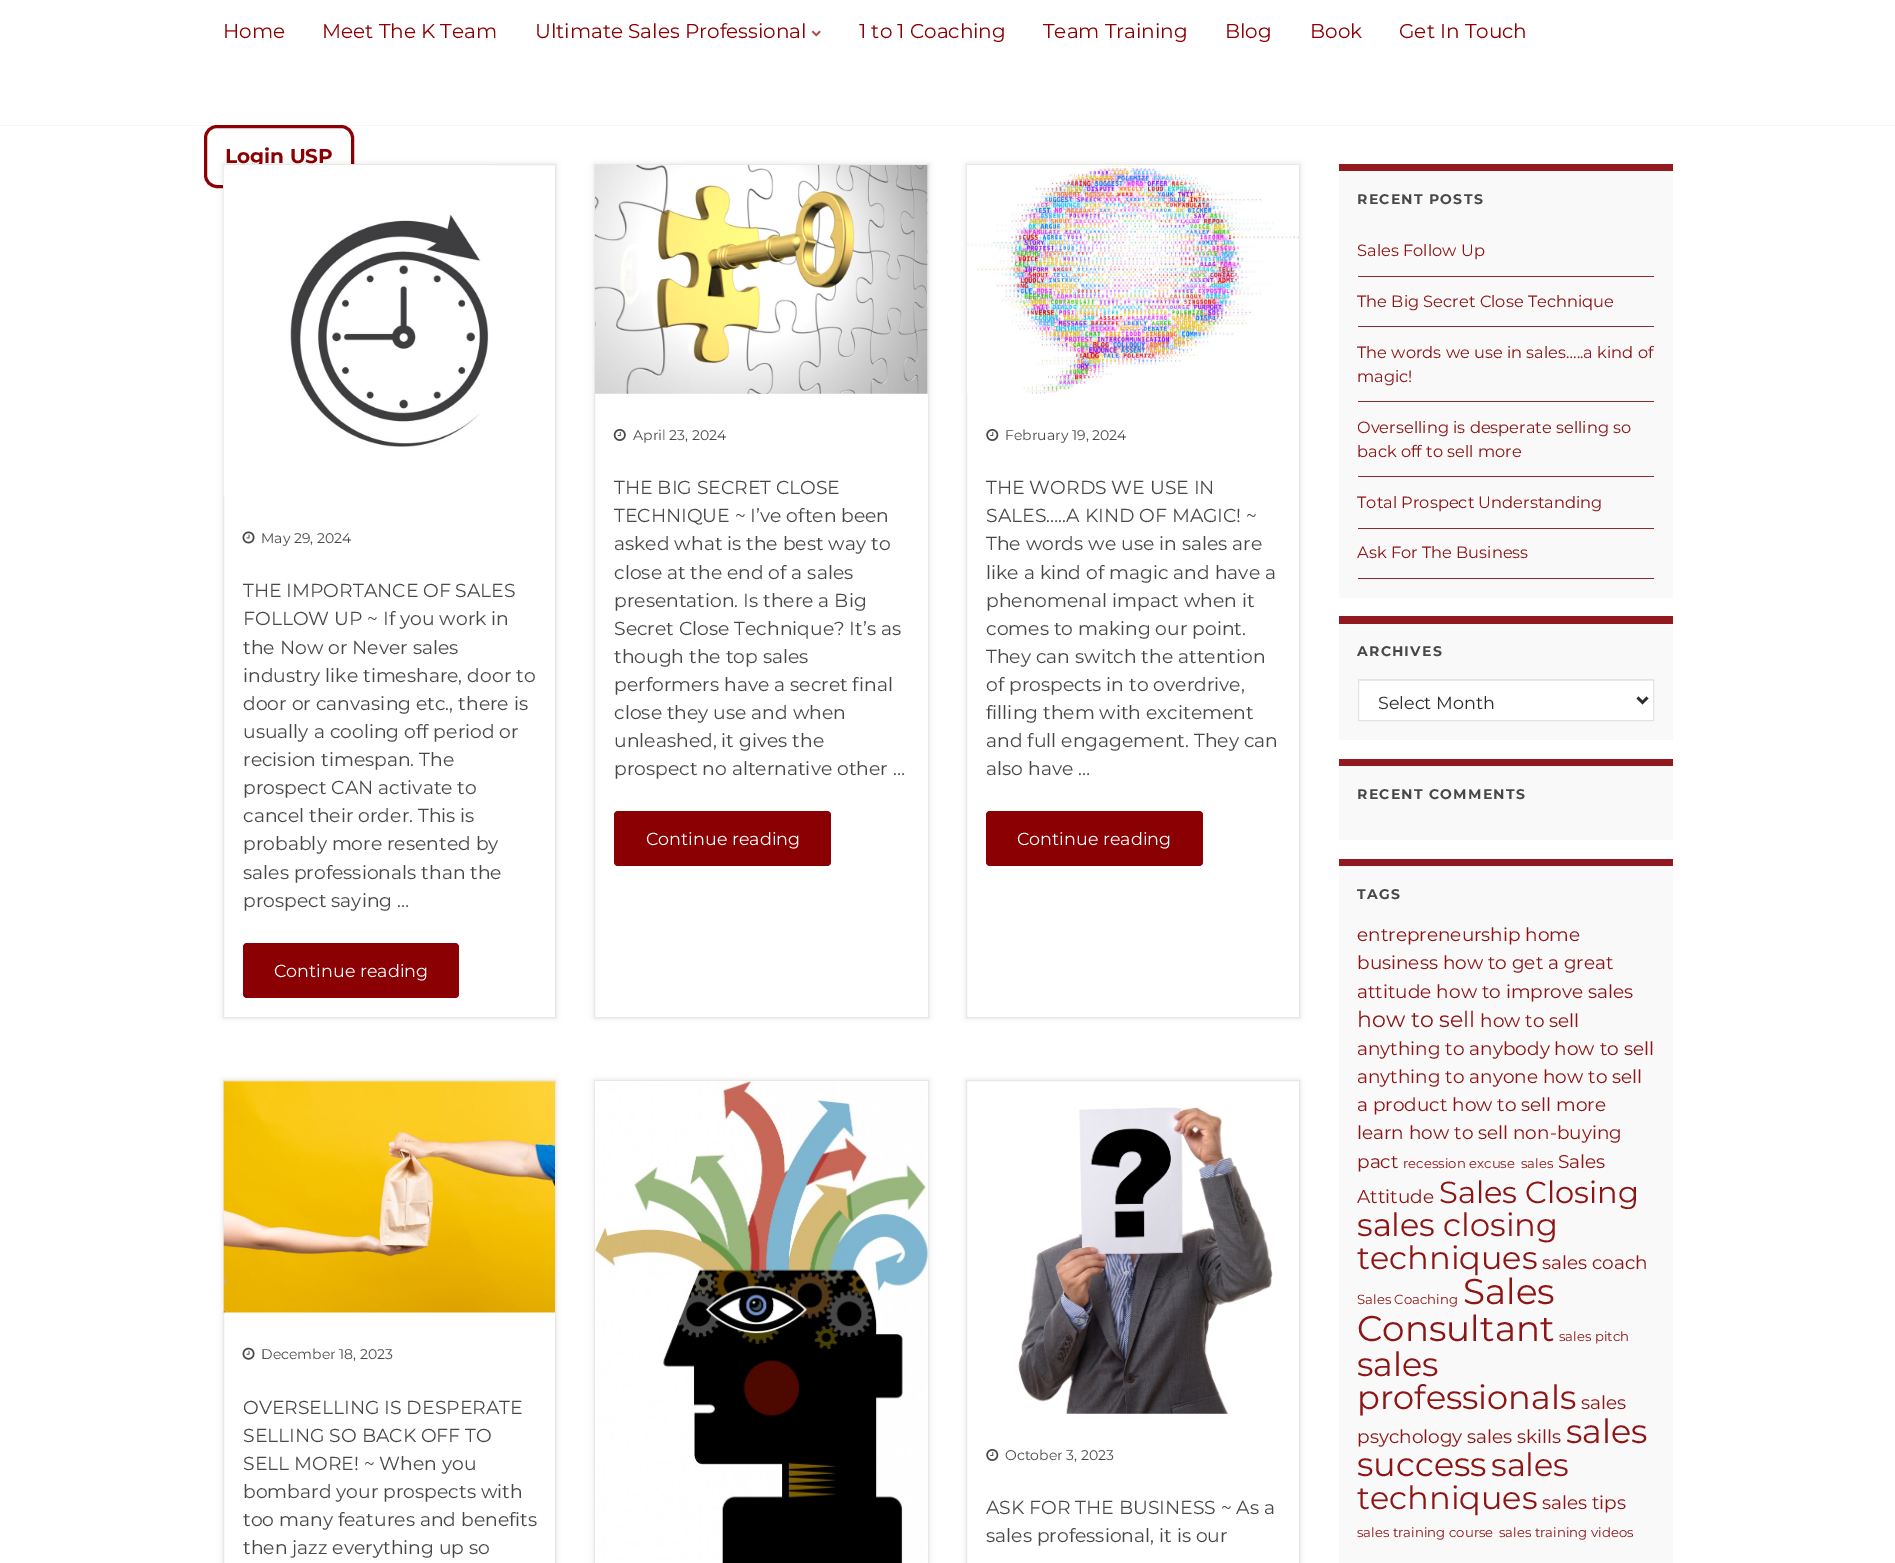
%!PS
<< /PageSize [1895 1563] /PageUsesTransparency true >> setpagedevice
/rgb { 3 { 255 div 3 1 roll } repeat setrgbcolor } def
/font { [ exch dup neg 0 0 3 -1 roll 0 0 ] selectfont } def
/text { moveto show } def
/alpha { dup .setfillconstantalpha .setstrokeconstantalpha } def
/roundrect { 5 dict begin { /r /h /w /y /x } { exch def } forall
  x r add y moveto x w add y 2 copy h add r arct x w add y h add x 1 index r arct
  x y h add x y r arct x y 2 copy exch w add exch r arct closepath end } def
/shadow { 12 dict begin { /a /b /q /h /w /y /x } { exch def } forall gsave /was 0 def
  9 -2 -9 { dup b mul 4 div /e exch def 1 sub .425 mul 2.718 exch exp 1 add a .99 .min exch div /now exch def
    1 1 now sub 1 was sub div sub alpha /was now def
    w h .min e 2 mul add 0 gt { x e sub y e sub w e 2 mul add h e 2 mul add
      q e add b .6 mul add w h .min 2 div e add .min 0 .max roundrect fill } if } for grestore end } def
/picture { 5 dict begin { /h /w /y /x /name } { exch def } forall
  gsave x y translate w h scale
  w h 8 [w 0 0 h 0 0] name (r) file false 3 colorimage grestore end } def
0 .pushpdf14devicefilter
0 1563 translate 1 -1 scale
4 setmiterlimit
255 255 255 rgb
0 0 1895 1563 rectfill
245 245 245 rgb
0 125 1895 1 rectfill
(img_01.rgb) 811 30 10 7 picture
139 0 3 rgb
3 setlinewidth
205.5 126.5 147 60 11.5 roundrect stroke
0 0 0 rgb
223 164 333 854 0 3 0.1 shadow
594 164 335 854 0 3 0.1 shadow
255 255 255 rgb
594.5 164.5 moveto 334 0 rlineto 0 853 rlineto -334 0 rlineto closepath gsave fill grestore
233 232 227 rgb
1 setlinewidth
stroke
(img_04.rgb) 595 165 333 229 picture
(img_05.rgb) 613 429 13 12 picture
139 0 3 rgb
614 811 217 55 4 roundrect fill
0 0 0 rgb
966 164 334 854 0 3 0.1 shadow
255 255 255 rgb
966.5 164.5 moveto 333 0 rlineto 0 853 rlineto -333 0 rlineto closepath gsave fill grestore
233 232 227 rgb
stroke
(img_06.rgb) 967 165 332 229 picture
(img_07.rgb) 986 429 13 12 picture
139 0 3 rgb
986 811 217 55 4 roundrect fill
gsave
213 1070 moveto 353 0 rlineto 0 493 rlineto -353 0 rlineto closepath 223 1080 moveto 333 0 rlineto 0 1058 rlineto -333 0 rlineto closepath eoclip newpath
0 0 0 rgb
223 1080 333 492 0 3 0.1 shadow
grestore
233 232 227 rgb
223.5 1080.5 332 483 rectstroke
(img_08.rgb) 223 1081 332 232 picture
(img_09.rgb) 242 1347 13 13 picture
0 0 0 rgb
594 1080 335 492 0 3 0.1 shadow
255 255 255 rgb
594.5 1080.5 moveto 334 0 rlineto 0 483 rlineto -334 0 rlineto closepath gsave fill grestore
233 232 227 rgb
stroke
(img_10.rgb) 595 1081 333 482 picture
0 0 0 rgb
966 1080 334 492 0 3 0.1 shadow
255 255 255 rgb
966.5 1080.5 moveto 333 0 rlineto 0 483 rlineto -333 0 rlineto closepath gsave fill grestore
233 232 227 rgb
stroke
(img_11.rgb) 1018 1107 255 307 picture
(img_07.rgb) 986 1449 13 12 picture
249 249 249 rgb
1339 171 334 427 rectfill
146 25 32 rgb
1339 164 334 7 rectfill
141 42 42 rgb
1358 276 296 1 rectfill
1358 326 296 1 rectfill
1358 401 296 1 rectfill
1358 476 296 1 rectfill
1358 528 296 1 rectfill
1358 578 296 1 rectfill
249 249 249 rgb
1339 624 334 116 rectfill
146 25 32 rgb
1339 616 334 8 rectfill
255 255 255 rgb
1359 681 294 39 rectfill
236 236 236 rgb
1359 680 294 1 rectfill
227 227 227 rgb
1358.5 679.5 295 41 rectstroke
44 43 43 rgb
2.5 setlinewidth
1637.5 697.5 moveto 5 5 rlineto 5 -5 rlineto stroke
249 249 249 rgb
1339 766 334 74 rectfill
146 25 32 rgb
1339 759 334 7 rectfill
249 249 249 rgb
1339 866 334 697 rectfill
146 25 32 rgb
1339 859 334 7 rectfill
/Montserrat-Regular 20 font
139 0 3 rgb
(Home) 223 38 text
(Meet The K Team) 322 38 text
(Ultimate Sales Professional) 535 38 text
(1 to 1 Coaching) 859 38 text
(Team Training) 1043 38 text
(Blog) 1225 38 text
(Book) 1310 38 text
(Get In Touch) 1399 38 text
/Montserrat-Bold 20 font
(Login USP) 225 163 text
255 255 255 rgb
223.5 164.5 moveto 332 0 rlineto 0 853 rlineto -332 0 rlineto closepath gsave fill grestore
233 232 227 rgb
1 setlinewidth
stroke
(img_02.rgb) 223 165 266 331 picture
(img_03.rgb) 242 531 13 13 picture
/Montserrat-Regular 14 font
74 71 75 rgb
(May 29, 2024) 261 543 text
/Montserrat-Regular 18.75 font
(THE IMPORTANCE OF SALES) 243 597 text
(FOLLOW UP ~ If you work in) 243 625 text
(the Now or Never sales) 243 654 text
(industry like timeshare, door to) 243 682 text
(door or canvasing etc., there is) 243 710 text
(usually a cooling off period or) 243 738 text
(recision timespan. The) 243 766 text
(prospect CAN activate to) 243 794 text
(cancel their order. This is) 243 822 text
(probably more resented by) 243 850 text
(sales professionals than the) 243 879 text
(prospect saying …) 243 907 text
139 0 3 rgb
243 943 216 55 4 roundrect fill
/Montserrat-Regular 17.5 font
255 255 255 rgb
(Continue reading) 274 977 text
/Montserrat-Regular 14 font
74 71 75 rgb
(April 23, 2024) 633 440 text
/Montserrat-Regular 18.75 font
(THE BIG SECRET CLOSE) 614 494 text
(TECHNIQUE ~ I’ve often been) 614 522 text
(asked what is the best way to) 614 550 text
(close at the end of a sales) 614 579 text
(presentation. Is there a Big) 614 607 text
(Secret Close Technique? It’s as) 614 635 text
(though the top sales) 614 663 text
(performers have a secret final) 614 691 text
(close they use and when) 614 719 text
(unleashed, it gives the) 614 747 text
(prospect no alternative other …) 614 775 text
/Montserrat-Regular 17.5 font
255 255 255 rgb
(Continue reading) 646 845 text
/Montserrat-Regular 14 font
74 71 75 rgb
(February 19, 2024) 1005 440 text
/Montserrat-Regular 18.75 font
(THE WORDS WE USE IN) 986 494 text
(SALES…..A KIND OF MAGIC! ~) 986 522 text
(The words we use in sales are) 986 550 text
(like a kind of magic and have a) 986 579 text
(phenomenal impact when it) 986 607 text
(comes to making our point.) 986 635 text
(They can switch the attention) 986 663 text
(of prospects in to overdrive,) 986 691 text
(filling them with excitement) 986 719 text
(and full engagement. They can) 986 747 text
(also have …) 986 775 text
/Montserrat-Regular 17.5 font
255 255 255 rgb
(Continue reading) 1017 845 text
/Montserrat-Regular 14 font
74 71 75 rgb
(December 18, 2023) 261 1359 text
/Montserrat-Regular 18.75 font
(OVERSELLING IS DESPERATE) 243 1414 text
(SELLING SO BACK OFF TO) 243 1442 text
(SELL MORE! ~ When you) 243 1470 text
(bombard your prospects with) 243 1498 text
(too many features and benefits) 243 1526 text
(then jazz everything up so) 243 1554 text
/Montserrat-Regular 14 font
(October 3, 2023) 1005 1460 text
/Montserrat-Regular 18.75 font
(ASK FOR THE BUSINESS ~ As a) 986 1514 text
(sales professional, it is our) 986 1542 text
/Montserrat-Bold 14 font
1357 204 moveto 1.25 0 (RECENT POSTS) ashow
/Montserrat-Regular 16.25 font
142 21 21 rgb
(Sales Follow Up) 1357 256 text
(The Big Secret Close Technique) 1357 307 text
(The words we use in sales…..a kind of) 1357 358 text
(magic!) 1357 382 text
gsave
1358 403 296 73 rectclip
(Overselling is desperate selling so) 1357 433 text
grestore
(back off to sell more) 1357 457 text
(Total Prospect Understanding) 1357 508 text
(Ask For The Business) 1357 558 text
/Montserrat-Bold 14 font
74 71 75 rgb
1357 656 moveto 1.25 0 (ARCHIVES) ashow
/Montserrat-Regular 17.5 font
44 43 43 rgb
(Select Month) 1378 709 text
/Montserrat-Bold 14 font
74 71 75 rgb
1357 799 moveto 1.25 0 (RECENT COMMENTS) ashow
1357 899 moveto 1.25 0 (TAGS) ashow
/Montserrat-Regular 18.5 font
142 21 21 rgb
(entrepreneurship home) 1357 941 text
(business how to get a great) 1357 969 text
(attitude how to improve sales) 1357 998 text
/Montserrat-Regular 22 font
(how to sell) 1357 1027 text
/Montserrat-Regular 18.5 font
(how to sell) 1480 1027 text
(anything to anybody how to sell) 1357 1055 text
(anything to anyone how to sell) 1357 1083 text
(a product how to sell more) 1357 1111 text
(learn how to sell non-buying) 1357 1139 text
(pact) 1357 1168 text
/Montserrat-Regular 13.25 font
(recession excuse) 1403 1168 text
(sales) 1521 1168 text
/Montserrat-Regular 18.5 font
(Sales) 1558 1168 text
(Attitude) 1357 1203 text
/Montserrat-Regular 30.5 font
(Sales Closing) 1439 1203 text
/Montserrat-Regular 32 font
(sales closing) 1357 1236 text
(techniques) 1357 1269 text
/Montserrat-Regular 18.5 font
(sales coach) 1542 1269 text
/Montserrat-Regular 13.25 font
(Sales Coaching) 1357 1304 text
/Montserrat-Regular 35.75 font
(Sales) 1463 1304 text
(Consultant) 1357 1341 text
/Montserrat-Regular 13.25 font
(sales pitch) 1559 1341 text
/Montserrat-Regular 33.5 font
(sales) 1357 1376 text
(professionals) 1357 1409 text
/Montserrat-Regular 18.5 font
(sales) 1581 1409 text
(psychology sales skills) 1357 1443 text
/Montserrat-Regular 33.5 font
(sales) 1566 1443 text
(success) 1357 1476 text
/Montserrat-Regular 32 font
(sales) 1491 1476 text
(techniques) 1357 1509 text
/Montserrat-Regular 18.5 font
(sales tips) 1542 1509 text
/Montserrat-Regular 13.25 font
(sales training course) 1357 1537 text
(sales training videos) 1499 1537 text
.poppdf14devicefilter showpage
